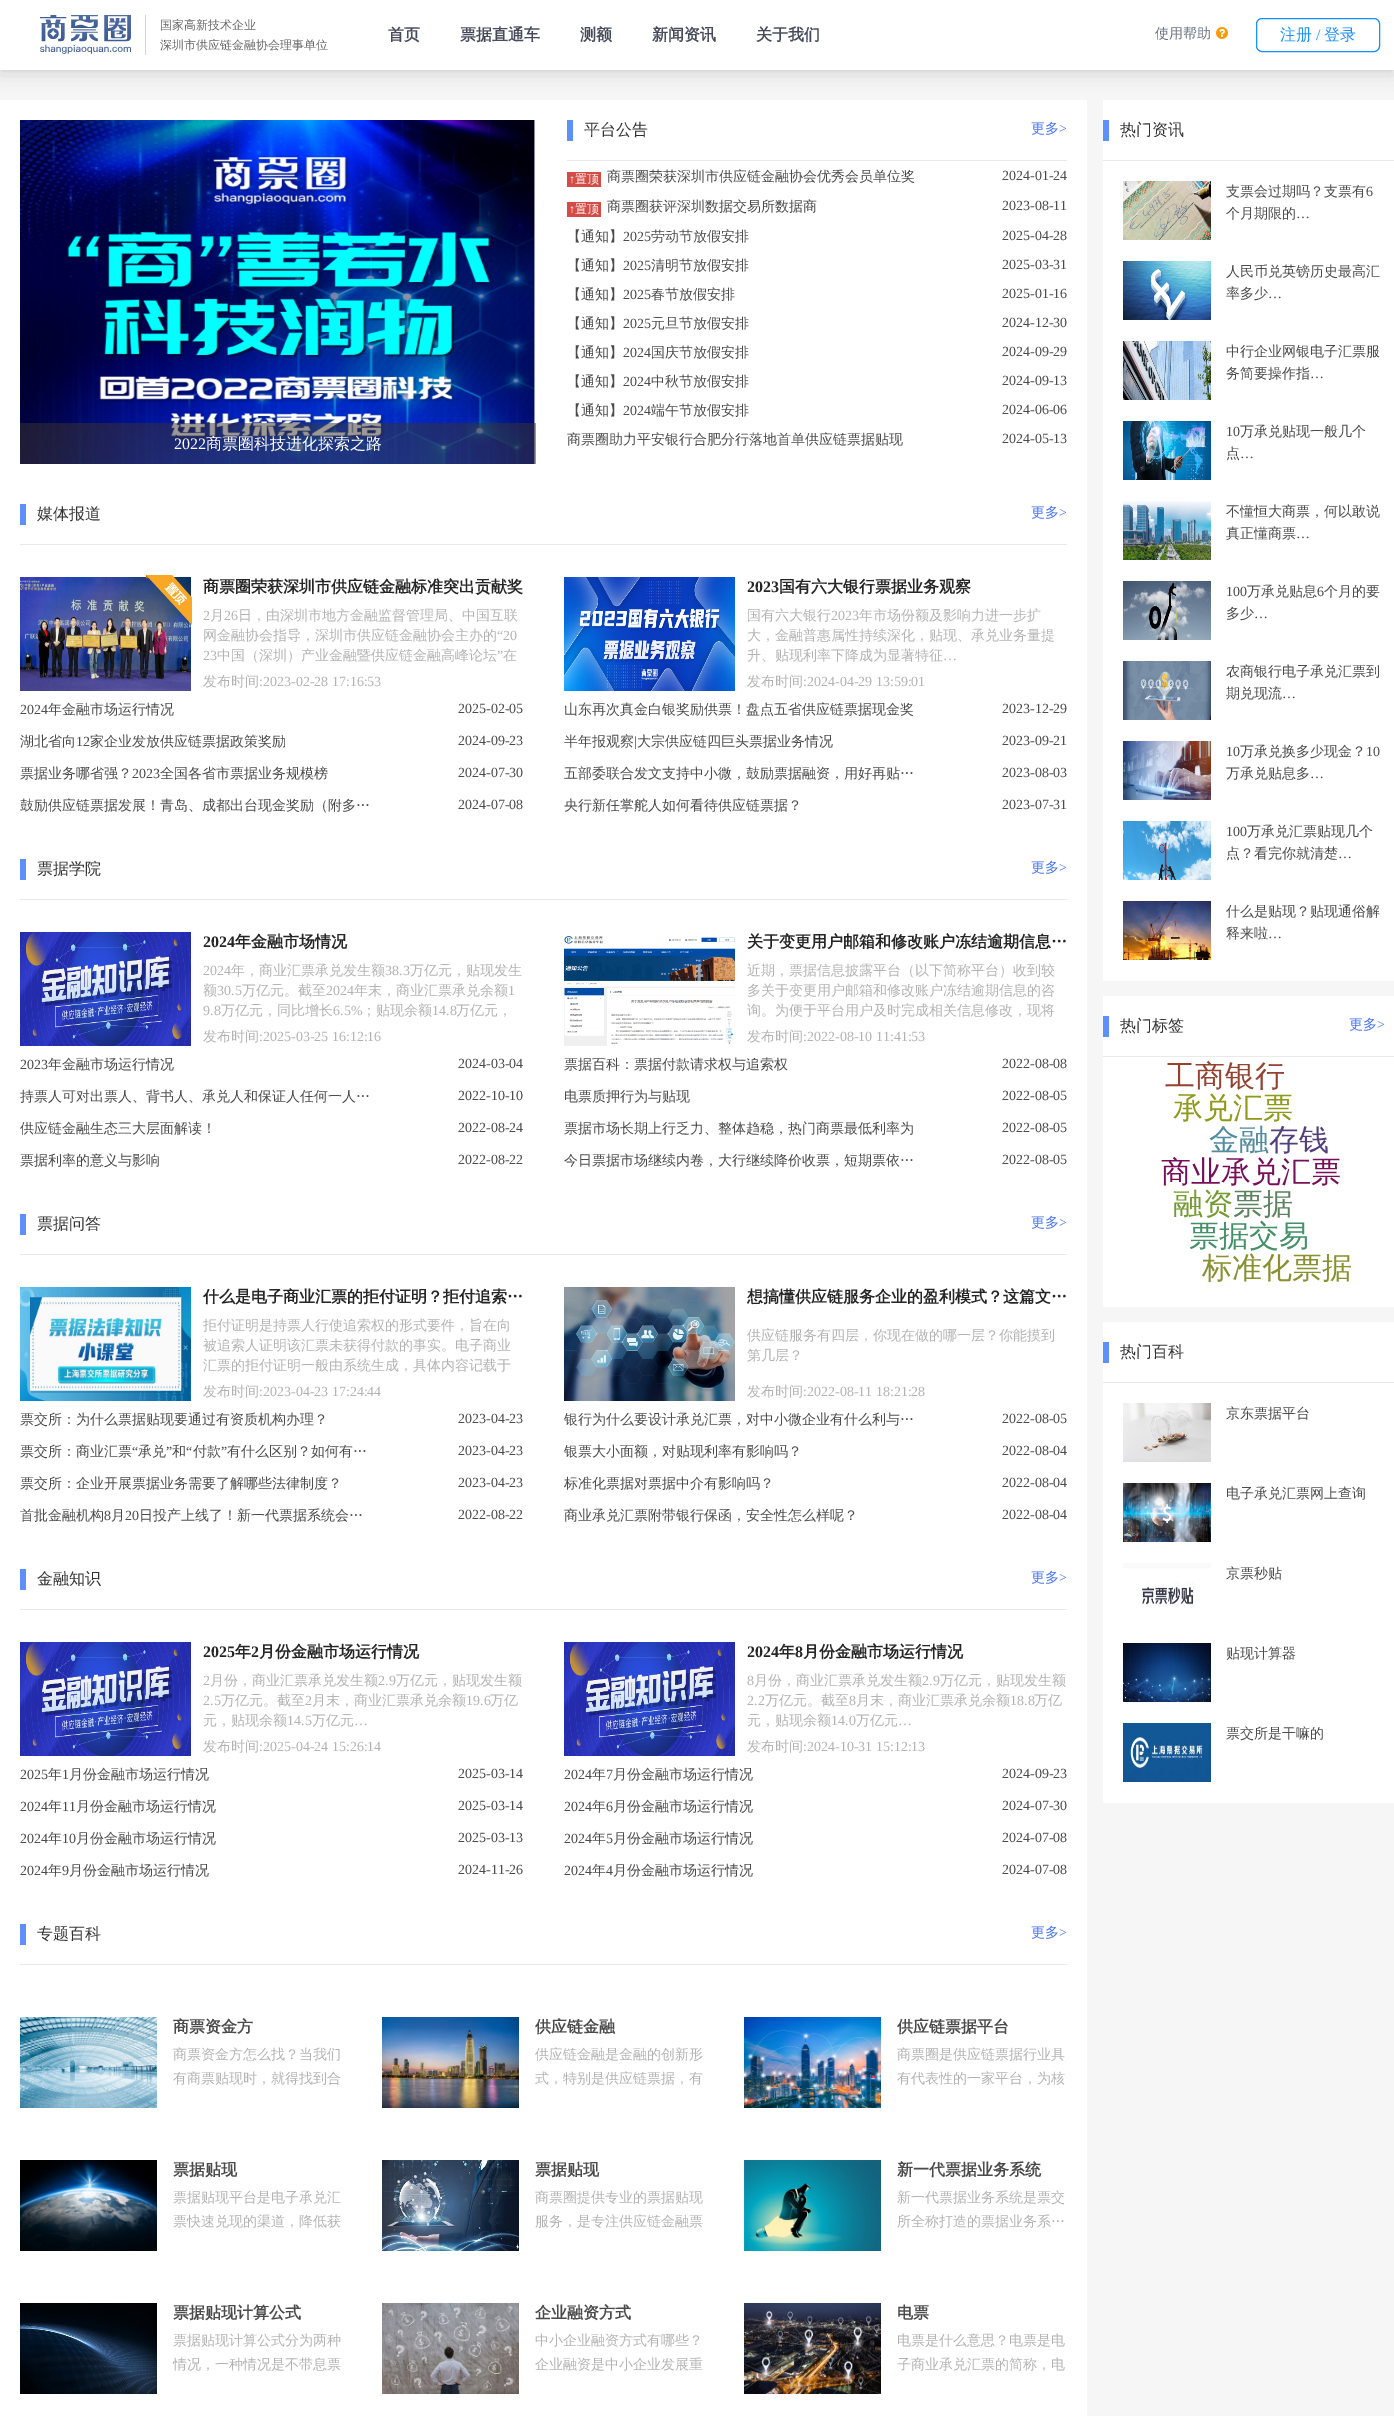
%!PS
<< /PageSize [1394 2416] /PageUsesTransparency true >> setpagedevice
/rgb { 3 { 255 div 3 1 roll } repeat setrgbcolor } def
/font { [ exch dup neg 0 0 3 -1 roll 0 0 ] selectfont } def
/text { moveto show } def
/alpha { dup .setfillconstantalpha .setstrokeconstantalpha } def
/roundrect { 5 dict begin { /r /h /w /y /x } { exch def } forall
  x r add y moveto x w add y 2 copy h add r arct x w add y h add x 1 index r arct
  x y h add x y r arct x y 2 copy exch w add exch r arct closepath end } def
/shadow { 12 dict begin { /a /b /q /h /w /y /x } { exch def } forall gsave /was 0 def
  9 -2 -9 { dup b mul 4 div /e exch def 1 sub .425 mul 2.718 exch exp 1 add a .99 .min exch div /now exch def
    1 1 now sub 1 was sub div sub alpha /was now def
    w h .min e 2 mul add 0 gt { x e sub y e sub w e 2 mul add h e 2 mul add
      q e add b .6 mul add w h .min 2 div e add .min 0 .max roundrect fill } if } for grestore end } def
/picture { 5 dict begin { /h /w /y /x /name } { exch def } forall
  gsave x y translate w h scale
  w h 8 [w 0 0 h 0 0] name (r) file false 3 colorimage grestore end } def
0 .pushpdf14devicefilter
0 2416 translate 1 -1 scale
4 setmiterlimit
246 246 246 rgb
0 0 1394 2416 rectfill
255 255 255 rgb
0 100 1087 2316 rectfill
1103 100 291 881 rectfill
0 0 0 rgb
0 0 1394 70 0 10 0.2 shadow
255 255 255 rgb
0 0 1394 70 rectfill
(img_01.rgb) 40 15 91 39 picture
212 212 212 rgb
145 15 1 40 rectfill
(img_02.rgb) 1216 27 12 12 picture
24 144 255 rgb
1256.5 18.5 123 33 5.5 roundrect stroke
(img_03.rgb) 20 120 516 344 picture
0.5 alpha
60 51 44 rgb
20 423 516 41 rectfill
1 alpha
233 233 233 rgb
567 160 500 1 rectfill
94 144 251 rgb
567 120 6 21 rectfill
213 75 69 rgb
567 172 34 15 rectfill
567 202 34 15 rectfill
233 233 233 rgb
20 544 1047 1 rectfill
94 144 251 rgb
20 504 6 21 rectfill
(img_05.rgb) 20 577 171 114 picture
(img_04.rgb) 145 575 47 50 picture
(img_06.rgb) 564 577 171 114 picture
233 233 233 rgb
20 899 1047 1 rectfill
94 144 251 rgb
20 859 6 21 rectfill
(img_07.rgb) 20 932 171 114 picture
(img_08.rgb) 564 936 171 110 picture
233 233 233 rgb
20 1254 1047 1 rectfill
94 144 251 rgb
20 1214 6 21 rectfill
(img_09.rgb) 20 1287 171 114 picture
(img_10.rgb) 564 1287 171 114 picture
233 233 233 rgb
20 1609 1047 1 rectfill
94 144 251 rgb
20 1569 6 21 rectfill
(img_11.rgb) 20 1642 171 114 picture
(img_12.rgb) 564 1642 171 114 picture
233 233 233 rgb
20 1964 1047 1 rectfill
94 144 251 rgb
20 1924 6 21 rectfill
(img_13.rgb) 20 2017 137 91 picture
(img_14.rgb) 382 2017 137 91 picture
(img_15.rgb) 744 2017 137 91 picture
(img_16.rgb) 20 2160 137 91 picture
(img_17.rgb) 382 2160 137 91 picture
(img_18.rgb) 744 2160 137 91 picture
(img_19.rgb) 20 2303 137 91 picture
(img_20.rgb) 382 2303 137 91 picture
(img_21.rgb) 744 2303 137 91 picture
233 233 233 rgb
1103 160 291 1 rectfill
94 144 251 rgb
1103 120 6 21 rectfill
(img_22.rgb) 1123 181 88 59 picture
(img_23.rgb) 1123 261 88 59 picture
(img_24.rgb) 1123 341 88 59 picture
(img_25.rgb) 1123 421 88 59 picture
(img_26.rgb) 1123 501 88 59 picture
(img_27.rgb) 1123 581 88 59 picture
(img_28.rgb) 1123 661 88 59 picture
(img_29.rgb) 1123 741 88 59 picture
(img_30.rgb) 1123 821 88 59 picture
(img_31.rgb) 1123 901 88 59 picture
255 255 255 rgb
1103 996 291 311 rectfill
233 233 233 rgb
1103 1056 291 1 rectfill
94 144 251 rgb
1103 1016 6 21 rectfill
(img_32.rgb) 1161 1060 190 222 picture
255 255 255 rgb
1103 1322 291 481 rectfill
233 233 233 rgb
1103 1382 291 1 rectfill
94 144 251 rgb
1103 1342 6 21 rectfill
(img_33.rgb) 1123 1403 88 59 picture
(img_34.rgb) 1123 1483 88 59 picture
(img_35.rgb) 1123 1563 88 44 picture
(img_36.rgb) 1123 1643 88 59 picture
(img_37.rgb) 1123 1723 88 59 picture
/WenQuanYiZenHei-Medium 12 font
102 102 102 rgb
(国家高新技术企业) 160 29 text
(深圳市供应链金融协会理事单位) 160 49 text
/WenQuanYiZenHei-Bold 16 font
70 76 91 rgb
(首页) 388 40 text
(票据直通车) 460 40 text
(测额) 580 40 text
(新闻资讯) 652 40 text
(关于我们) 756 40 text
/WenQuanYiZenHei-Medium 14 font
101 113 128 rgb
(使用帮助) 1155 38 text
/WenQuanYiZenHei-Medium 16 font
24 144 255 rgb
(注册) 1280 40 text
/LiberationSerif-Regular 16 font
(/) 1316 40 text
/WenQuanYiZenHei-Medium 16 font
(登录) 1324 40 text
/LiberationSerif-Regular 16 font
255 255 255 rgb
(2022) 174 449 text
/WenQuanYiZenHei-Medium 16 font
(商票圈科技进化探索之路) 206 449 text
51 51 51 rgb
(平台公告) 584 135 text
/WenQuanYiZenHei-Medium 14 font
70 116 240 rgb
(更多) 1031 133 text
/LiberationSerif-Regular 14 font
(>) 1059 133 text
/LiberationSerif-Regular 12 font
255 255 255 rgb
(↑) 569 183 text
/WenQuanYiZenHei-Medium 12 font
(置顶) 575 183 text
/WenQuanYiZenHei-Medium 14 font
75 75 75 rgb
(商票圈荣获深圳市供应链金融协会优秀会员单位奖) 607 181 text
/LiberationSerif-Regular 14 font
(2024-01-24) 1002 180 text
/LiberationSerif-Regular 12 font
255 255 255 rgb
(↑) 569 213 text
/WenQuanYiZenHei-Medium 12 font
(置顶) 575 213 text
/WenQuanYiZenHei-Medium 14 font
75 75 75 rgb
(商票圈获评深圳数据交易所数据商) 607 211 text
/LiberationSerif-Regular 14 font
(2023-08-11) 1002 210 text
/WenQuanYiZenHei-Medium 14 font
(【通知】) 567 241 text
/LiberationSerif-Regular 14 font
(2025) 623 241 text
/WenQuanYiZenHei-Medium 14 font
(劳动节放假安排) 651 241 text
/LiberationSerif-Regular 14 font
(2025-04-28) 1002 240 text
/WenQuanYiZenHei-Medium 14 font
(【通知】) 567 270 text
/LiberationSerif-Regular 14 font
(2025) 623 270 text
/WenQuanYiZenHei-Medium 14 font
(清明节放假安排) 651 270 text
/LiberationSerif-Regular 14 font
(2025-03-31) 1002 269 text
/WenQuanYiZenHei-Medium 14 font
(【通知】) 567 299 text
/LiberationSerif-Regular 14 font
(2025) 623 299 text
/WenQuanYiZenHei-Medium 14 font
(春节放假安排) 651 299 text
/LiberationSerif-Regular 14 font
(2025-01-16) 1002 298 text
/WenQuanYiZenHei-Medium 14 font
(【通知】) 567 328 text
/LiberationSerif-Regular 14 font
(2025) 623 328 text
/WenQuanYiZenHei-Medium 14 font
(元旦节放假安排) 651 328 text
/LiberationSerif-Regular 14 font
(2024-12-30) 1002 327 text
/WenQuanYiZenHei-Medium 14 font
(【通知】) 567 357 text
/LiberationSerif-Regular 14 font
(2024) 623 357 text
/WenQuanYiZenHei-Medium 14 font
(国庆节放假安排) 651 357 text
/LiberationSerif-Regular 14 font
(2024-09-29) 1002 356 text
/WenQuanYiZenHei-Medium 14 font
(【通知】) 567 386 text
/LiberationSerif-Regular 14 font
(2024) 623 386 text
/WenQuanYiZenHei-Medium 14 font
(中秋节放假安排) 651 386 text
/LiberationSerif-Regular 14 font
(2024-09-13) 1002 385 text
/WenQuanYiZenHei-Medium 14 font
(【通知】) 567 415 text
/LiberationSerif-Regular 14 font
(2024) 623 415 text
/WenQuanYiZenHei-Medium 14 font
(端午节放假安排) 651 415 text
/LiberationSerif-Regular 14 font
(2024-06-06) 1002 414 text
/WenQuanYiZenHei-Medium 14 font
(商票圈助力平安银行合肥分行落地首单供应链票据贴现) 567 444 text
/LiberationSerif-Regular 14 font
(2024-05-13) 1002 443 text
/WenQuanYiZenHei-Medium 16 font
51 51 51 rgb
(媒体报道) 37 519 text
/WenQuanYiZenHei-Medium 14 font
70 116 240 rgb
(更多) 1031 517 text
/LiberationSerif-Regular 14 font
(>) 1059 517 text
/WenQuanYiZenHei-Bold 16 font
38 38 38 rgb
(商票圈荣获深圳市供应链金融标准突出贡献奖) 203 592 text
/LiberationSerif-Regular 14 font
179 179 179 rgb
(2) 203 620 text
/WenQuanYiZenHei-Medium 14 font
(月) 210 620 text
/LiberationSerif-Regular 14 font
(26) 224 620 text
/WenQuanYiZenHei-Medium 14 font
(日，由深圳市地方金融监督管理局、中国互联) 238 620 text
(网金融协会指导，深圳市供应链金融协会主办的) 203 640 text
/LiberationSerif-Regular 14 font
(“20) 497 640 text
(23) 203 660 text
/WenQuanYiZenHei-Medium 14 font
(中国（深圳）产业金融暨供应链金融高峰论坛) 217 660 text
/LiberationSerif-Regular 14 font
(”) 497 660 text
/WenQuanYiZenHei-Medium 14 font
(在) 503 660 text
(发布时间) 203 686 text
/LiberationSerif-Regular 14 font
(:2023-02-28 17:16:53) 259 686 text
75 75 75 rgb
(2024) 20 714 text
/WenQuanYiZenHei-Medium 14 font
(年金融市场运行情况) 48 714 text
/LiberationSerif-Regular 14 font
(2025-02-05) 458 713 text
/WenQuanYiZenHei-Medium 14 font
(湖北省向) 20 746 text
/LiberationSerif-Regular 14 font
(12) 76 746 text
/WenQuanYiZenHei-Medium 14 font
(家企业发放供应链票据政策奖励) 90 746 text
/LiberationSerif-Regular 14 font
(2024-09-23) 458 745 text
/WenQuanYiZenHei-Medium 14 font
(票据业务哪省强？) 20 778 text
/LiberationSerif-Regular 14 font
(2023) 132 778 text
/WenQuanYiZenHei-Medium 14 font
(全国各省市票据业务规模榜) 160 778 text
/LiberationSerif-Regular 14 font
(2024-07-30) 458 777 text
/WenQuanYiZenHei-Medium 14 font
(鼓励供应链票据发展！青岛、成都出台现金奖励（附多…) 20 810 text
/LiberationSerif-Regular 14 font
(2024-07-08) 458 809 text
/LiberationSerif-Bold 16 font
38 38 38 rgb
(2023) 747 592 text
/WenQuanYiZenHei-Bold 16 font
(国有六大银行票据业务观察) 779 592 text
/WenQuanYiZenHei-Medium 14 font
179 179 179 rgb
(国有六大银行) 747 620 text
/LiberationSerif-Regular 14 font
(2023) 831 620 text
/WenQuanYiZenHei-Medium 14 font
(年市场份额及影响力进一步扩) 859 620 text
(大，金融普惠属性持续深化，贴现、承兑业务量提) 747 640 text
(升、贴现利率下降成为显著特征) 747 660 text
/LiberationSerif-Regular 14 font
(…) 943 660 text
/WenQuanYiZenHei-Medium 14 font
(发布时间) 747 686 text
/LiberationSerif-Regular 14 font
(:2024-04-29 13:59:01) 803 686 text
/WenQuanYiZenHei-Medium 14 font
75 75 75 rgb
(山东再次真金白银奖励供票！盘点五省供应链票据现金奖) 564 714 text
/LiberationSerif-Regular 14 font
(2023-12-29) 1002 713 text
/WenQuanYiZenHei-Medium 14 font
(半年报观察) 564 746 text
/LiberationSerif-Regular 14 font
(|) 634 746 text
/WenQuanYiZenHei-Medium 14 font
(大宗供应链四巨头票据业务情况) 637 746 text
/LiberationSerif-Regular 14 font
(2023-09-21) 1002 745 text
/WenQuanYiZenHei-Medium 14 font
(五部委联合发文支持中小微，鼓励票据融资，用好再贴…) 564 778 text
/LiberationSerif-Regular 14 font
(2023-08-03) 1002 777 text
/WenQuanYiZenHei-Medium 14 font
(央行新任掌舵人如何看待供应链票据？) 564 810 text
/LiberationSerif-Regular 14 font
(2023-07-31) 1002 809 text
/WenQuanYiZenHei-Medium 16 font
51 51 51 rgb
(票据学院) 37 874 text
/WenQuanYiZenHei-Medium 14 font
70 116 240 rgb
(更多) 1031 872 text
/LiberationSerif-Regular 14 font
(>) 1059 872 text
/LiberationSerif-Bold 16 font
38 38 38 rgb
(2024) 203 947 text
/WenQuanYiZenHei-Bold 16 font
(年金融市场情况) 235 947 text
/LiberationSerif-Regular 14 font
179 179 179 rgb
(2024) 203 975 text
/WenQuanYiZenHei-Medium 14 font
(年，商业汇票承兑发生额) 231 975 text
/LiberationSerif-Regular 14 font
(38.3) 385 975 text
/WenQuanYiZenHei-Medium 14 font
(万亿元，贴现发生) 410 975 text
(额) 203 995 text
/LiberationSerif-Regular 14 font
(30.5) 217 995 text
/WenQuanYiZenHei-Medium 14 font
(万亿元。截至) 242 995 text
/LiberationSerif-Regular 14 font
(2024) 326 995 text
/WenQuanYiZenHei-Medium 14 font
(年末，商业汇票承兑余额) 354 995 text
/LiberationSerif-Regular 14 font
(1) 508 995 text
(9.8) 203 1015 text
/WenQuanYiZenHei-Medium 14 font
(万亿元，同比增长) 221 1015 text
/LiberationSerif-Regular 14 font
(6.5%) 333 1015 text
/WenQuanYiZenHei-Medium 14 font
(；贴现余额) 362 1015 text
/LiberationSerif-Regular 14 font
(14.8) 432 1015 text
/WenQuanYiZenHei-Medium 14 font
(万亿元，) 456 1015 text
(发布时间) 203 1041 text
/LiberationSerif-Regular 14 font
(:2025-03-25 16:12:16) 259 1041 text
75 75 75 rgb
(2023) 20 1069 text
/WenQuanYiZenHei-Medium 14 font
(年金融市场运行情况) 48 1069 text
/LiberationSerif-Regular 14 font
(2024-03-04) 458 1068 text
/WenQuanYiZenHei-Medium 14 font
(持票人可对出票人、背书人、承兑人和保证人任何一人…) 20 1101 text
/LiberationSerif-Regular 14 font
(2022-10-10) 458 1100 text
/WenQuanYiZenHei-Medium 14 font
(供应链金融生态三大层面解读！) 20 1133 text
/LiberationSerif-Regular 14 font
(2022-08-24) 458 1132 text
/WenQuanYiZenHei-Medium 14 font
(票据利率的意义与影响) 20 1165 text
/LiberationSerif-Regular 14 font
(2022-08-22) 458 1164 text
/WenQuanYiZenHei-Bold 16 font
38 38 38 rgb
(关于变更用户邮箱和修改账户冻结逾期信息…) 747 947 text
/WenQuanYiZenHei-Medium 14 font
179 179 179 rgb
(近期，票据信息披露平台（以下简称平台）收到较) 747 975 text
(多关于变更用户邮箱和修改账户冻结逾期信息的咨) 747 995 text
(询。为便于平台用户及时完成相关信息修改，现将) 747 1015 text
(发布时间) 747 1041 text
/LiberationSerif-Regular 14 font
(:2022-08-10 11:41:53) 803 1041 text
/WenQuanYiZenHei-Medium 14 font
75 75 75 rgb
(票据百科：票据付款请求权与追索权) 564 1069 text
/LiberationSerif-Regular 14 font
(2022-08-08) 1002 1068 text
/WenQuanYiZenHei-Medium 14 font
(电票质押行为与贴现) 564 1101 text
/LiberationSerif-Regular 14 font
(2022-08-05) 1002 1100 text
/WenQuanYiZenHei-Medium 14 font
(票据市场长期上行乏力、整体趋稳，热门商票最低利率为) 564 1133 text
/LiberationSerif-Regular 14 font
(2022-08-05) 1002 1132 text
/WenQuanYiZenHei-Medium 14 font
(今日票据市场继续内卷，大行继续降价收票，短期票依…) 564 1165 text
/LiberationSerif-Regular 14 font
(2022-08-05) 1002 1164 text
/WenQuanYiZenHei-Medium 16 font
51 51 51 rgb
(票据问答) 37 1229 text
/WenQuanYiZenHei-Medium 14 font
70 116 240 rgb
(更多) 1031 1227 text
/LiberationSerif-Regular 14 font
(>) 1059 1227 text
/WenQuanYiZenHei-Bold 16 font
38 38 38 rgb
(什么是电子商业汇票的拒付证明？拒付追索…) 203 1302 text
/WenQuanYiZenHei-Medium 14 font
179 179 179 rgb
(拒付证明是持票人行使追索权的形式要件，旨在向) 203 1330 text
(被追索人证明该汇票未获得付款的事实。电子商业) 203 1350 text
(汇票的拒付证明一般由系统生成，具体内容记载于) 203 1370 text
(发布时间) 203 1396 text
/LiberationSerif-Regular 14 font
(:2023-04-23 17:24:44) 259 1396 text
/WenQuanYiZenHei-Medium 14 font
75 75 75 rgb
(票交所：为什么票据贴现要通过有资质机构办理？) 20 1424 text
/LiberationSerif-Regular 14 font
(2023-04-23) 458 1423 text
/WenQuanYiZenHei-Medium 14 font
(票交所：商业汇票) 20 1456 text
/LiberationSerif-Regular 14 font
(“) 132 1456 text
/WenQuanYiZenHei-Medium 14 font
(承兑) 138 1456 text
/LiberationSerif-Regular 14 font
(”) 166 1456 text
/WenQuanYiZenHei-Medium 14 font
(和) 172 1456 text
/LiberationSerif-Regular 14 font
(“) 186 1456 text
/WenQuanYiZenHei-Medium 14 font
(付款) 193 1456 text
/LiberationSerif-Regular 14 font
(”) 221 1456 text
/WenQuanYiZenHei-Medium 14 font
(有什么区别？如何有…) 227 1456 text
/LiberationSerif-Regular 14 font
(2023-04-23) 458 1455 text
/WenQuanYiZenHei-Medium 14 font
(票交所：企业开展票据业务需要了解哪些法律制度？) 20 1488 text
/LiberationSerif-Regular 14 font
(2023-04-23) 458 1487 text
/WenQuanYiZenHei-Medium 14 font
(首批金融机构) 20 1520 text
/LiberationSerif-Regular 14 font
(8) 104 1520 text
/WenQuanYiZenHei-Medium 14 font
(月) 111 1520 text
/LiberationSerif-Regular 14 font
(20) 125 1520 text
/WenQuanYiZenHei-Medium 14 font
(日投产上线了！新一代票据系统会…) 139 1520 text
/LiberationSerif-Regular 14 font
(2022-08-22) 458 1519 text
/WenQuanYiZenHei-Bold 16 font
38 38 38 rgb
(想搞懂供应链服务企业的盈利模式？这篇文…) 747 1302 text
/WenQuanYiZenHei-Medium 14 font
179 179 179 rgb
(供应链服务有四层，你现在做的哪一层？你能摸到) 747 1340 text
(第几层？) 747 1360 text
(发布时间) 747 1396 text
/LiberationSerif-Regular 14 font
(:2022-08-11 18:21:28) 803 1396 text
/WenQuanYiZenHei-Medium 14 font
75 75 75 rgb
(银行为什么要设计承兑汇票，对中小微企业有什么利与…) 564 1424 text
/LiberationSerif-Regular 14 font
(2022-08-05) 1002 1423 text
/WenQuanYiZenHei-Medium 14 font
(银票大小面额，对贴现利率有影响吗？) 564 1456 text
/LiberationSerif-Regular 14 font
(2022-08-04) 1002 1455 text
/WenQuanYiZenHei-Medium 14 font
(标准化票据对票据中介有影响吗？) 564 1488 text
/LiberationSerif-Regular 14 font
(2022-08-04) 1002 1487 text
/WenQuanYiZenHei-Medium 14 font
(商业承兑汇票附带银行保函，安全性怎么样呢？) 564 1520 text
/LiberationSerif-Regular 14 font
(2022-08-04) 1002 1519 text
/WenQuanYiZenHei-Medium 16 font
51 51 51 rgb
(金融知识) 37 1584 text
/WenQuanYiZenHei-Medium 14 font
70 116 240 rgb
(更多) 1031 1582 text
/LiberationSerif-Regular 14 font
(>) 1059 1582 text
/LiberationSerif-Bold 16 font
38 38 38 rgb
(2025) 203 1657 text
/WenQuanYiZenHei-Bold 16 font
(年) 235 1657 text
/LiberationSerif-Bold 16 font
(2) 251 1657 text
/WenQuanYiZenHei-Bold 16 font
(月份金融市场运行情况) 259 1657 text
/LiberationSerif-Regular 14 font
179 179 179 rgb
(2) 203 1685 text
/WenQuanYiZenHei-Medium 14 font
(月份，商业汇票承兑发生额) 210 1685 text
/LiberationSerif-Regular 14 font
(2.9) 378 1685 text
/WenQuanYiZenHei-Medium 14 font
(万亿元，贴现发生额) 396 1685 text
/LiberationSerif-Regular 14 font
(2.5) 203 1705 text
/WenQuanYiZenHei-Medium 14 font
(万亿元。截至) 221 1705 text
/LiberationSerif-Regular 14 font
(2) 305 1705 text
/WenQuanYiZenHei-Medium 14 font
(月末，商业汇票承兑余额) 312 1705 text
/LiberationSerif-Regular 14 font
(19.6) 466 1705 text
/WenQuanYiZenHei-Medium 14 font
(万亿) 490 1705 text
(元，贴现余额) 203 1725 text
/LiberationSerif-Regular 14 font
(14.5) 287 1725 text
/WenQuanYiZenHei-Medium 14 font
(万亿元) 312 1725 text
/LiberationSerif-Regular 14 font
(…) 354 1725 text
/WenQuanYiZenHei-Medium 14 font
(发布时间) 203 1751 text
/LiberationSerif-Regular 14 font
(:2025-04-24 15:26:14) 259 1751 text
75 75 75 rgb
(2025) 20 1779 text
/WenQuanYiZenHei-Medium 14 font
(年) 48 1779 text
/LiberationSerif-Regular 14 font
(1) 62 1779 text
/WenQuanYiZenHei-Medium 14 font
(月份金融市场运行情况) 69 1779 text
/LiberationSerif-Regular 14 font
(2025-03-14) 458 1778 text
(2024) 20 1811 text
/WenQuanYiZenHei-Medium 14 font
(年) 48 1811 text
/LiberationSerif-Regular 14 font
(11) 62 1811 text
/WenQuanYiZenHei-Medium 14 font
(月份金融市场运行情况) 76 1811 text
/LiberationSerif-Regular 14 font
(2025-03-14) 458 1810 text
(2024) 20 1843 text
/WenQuanYiZenHei-Medium 14 font
(年) 48 1843 text
/LiberationSerif-Regular 14 font
(10) 62 1843 text
/WenQuanYiZenHei-Medium 14 font
(月份金融市场运行情况) 76 1843 text
/LiberationSerif-Regular 14 font
(2025-03-13) 458 1842 text
(2024) 20 1875 text
/WenQuanYiZenHei-Medium 14 font
(年) 48 1875 text
/LiberationSerif-Regular 14 font
(9) 62 1875 text
/WenQuanYiZenHei-Medium 14 font
(月份金融市场运行情况) 69 1875 text
/LiberationSerif-Regular 14 font
(2024-11-26) 458 1874 text
/LiberationSerif-Bold 16 font
38 38 38 rgb
(2024) 747 1657 text
/WenQuanYiZenHei-Bold 16 font
(年) 779 1657 text
/LiberationSerif-Bold 16 font
(8) 795 1657 text
/WenQuanYiZenHei-Bold 16 font
(月份金融市场运行情况) 803 1657 text
/LiberationSerif-Regular 14 font
179 179 179 rgb
(8) 747 1685 text
/WenQuanYiZenHei-Medium 14 font
(月份，商业汇票承兑发生额) 754 1685 text
/LiberationSerif-Regular 14 font
(2.9) 922 1685 text
/WenQuanYiZenHei-Medium 14 font
(万亿元，贴现发生额) 940 1685 text
/LiberationSerif-Regular 14 font
(2.2) 747 1705 text
/WenQuanYiZenHei-Medium 14 font
(万亿元。截至) 765 1705 text
/LiberationSerif-Regular 14 font
(8) 849 1705 text
/WenQuanYiZenHei-Medium 14 font
(月末，商业汇票承兑余额) 856 1705 text
/LiberationSerif-Regular 14 font
(18.8) 1010 1705 text
/WenQuanYiZenHei-Medium 14 font
(万亿) 1034 1705 text
(元，贴现余额) 747 1725 text
/LiberationSerif-Regular 14 font
(14.0) 831 1725 text
/WenQuanYiZenHei-Medium 14 font
(万亿元) 856 1725 text
/LiberationSerif-Regular 14 font
(…) 898 1725 text
/WenQuanYiZenHei-Medium 14 font
(发布时间) 747 1751 text
/LiberationSerif-Regular 14 font
(:2024-10-31 15:12:13) 803 1751 text
75 75 75 rgb
(2024) 564 1779 text
/WenQuanYiZenHei-Medium 14 font
(年) 592 1779 text
/LiberationSerif-Regular 14 font
(7) 606 1779 text
/WenQuanYiZenHei-Medium 14 font
(月份金融市场运行情况) 613 1779 text
/LiberationSerif-Regular 14 font
(2024-09-23) 1002 1778 text
(2024) 564 1811 text
/WenQuanYiZenHei-Medium 14 font
(年) 592 1811 text
/LiberationSerif-Regular 14 font
(6) 606 1811 text
/WenQuanYiZenHei-Medium 14 font
(月份金融市场运行情况) 613 1811 text
/LiberationSerif-Regular 14 font
(2024-07-30) 1002 1810 text
(2024) 564 1843 text
/WenQuanYiZenHei-Medium 14 font
(年) 592 1843 text
/LiberationSerif-Regular 14 font
(5) 606 1843 text
/WenQuanYiZenHei-Medium 14 font
(月份金融市场运行情况) 613 1843 text
/LiberationSerif-Regular 14 font
(2024-07-08) 1002 1842 text
(2024) 564 1875 text
/WenQuanYiZenHei-Medium 14 font
(年) 592 1875 text
/LiberationSerif-Regular 14 font
(4) 606 1875 text
/WenQuanYiZenHei-Medium 14 font
(月份金融市场运行情况) 613 1875 text
/LiberationSerif-Regular 14 font
(2024-07-08) 1002 1874 text
/WenQuanYiZenHei-Medium 16 font
51 51 51 rgb
(专题百科) 37 1939 text
/WenQuanYiZenHei-Medium 14 font
70 116 240 rgb
(更多) 1031 1937 text
/LiberationSerif-Regular 14 font
(>) 1059 1937 text
/WenQuanYiZenHei-Bold 16 font
75 75 75 rgb
(商票资金方) 173 2032 text
/WenQuanYiZenHei-Medium 14 font
179 179 179 rgb
(商票资金方怎么找？当我们) 173 2059 text
(有商票贴现时，就得找到合) 173 2083 text
/WenQuanYiZenHei-Bold 16 font
75 75 75 rgb
(供应链金融) 535 2032 text
/WenQuanYiZenHei-Medium 14 font
179 179 179 rgb
(供应链金融是金融的创新形) 535 2059 text
(式，特别是供应链票据，有) 535 2083 text
/WenQuanYiZenHei-Bold 16 font
75 75 75 rgb
(供应链票据平台) 897 2032 text
/WenQuanYiZenHei-Medium 14 font
179 179 179 rgb
(商票圈是供应链票据行业具) 897 2059 text
(有代表性的一家平台，为核) 897 2083 text
/WenQuanYiZenHei-Bold 16 font
75 75 75 rgb
(票据贴现) 173 2175 text
/WenQuanYiZenHei-Medium 14 font
179 179 179 rgb
(票据贴现平台是电子承兑汇) 173 2202 text
(票快速兑现的渠道，降低获) 173 2226 text
/WenQuanYiZenHei-Bold 16 font
75 75 75 rgb
(票据贴现) 535 2175 text
/WenQuanYiZenHei-Medium 14 font
179 179 179 rgb
(商票圈提供专业的票据贴现) 535 2202 text
(服务，是专注供应链金融票) 535 2226 text
/WenQuanYiZenHei-Bold 16 font
75 75 75 rgb
(新一代票据业务系统) 897 2175 text
/WenQuanYiZenHei-Medium 14 font
179 179 179 rgb
(新一代票据业务系统是票交) 897 2202 text
(所全称打造的票据业务系…) 897 2226 text
/WenQuanYiZenHei-Bold 16 font
75 75 75 rgb
(票据贴现计算公式) 173 2318 text
/WenQuanYiZenHei-Medium 14 font
179 179 179 rgb
(票据贴现计算公式分为两种) 173 2345 text
(情况，一种情况是不带息票) 173 2369 text
/WenQuanYiZenHei-Bold 16 font
75 75 75 rgb
(企业融资方式) 535 2318 text
/WenQuanYiZenHei-Medium 14 font
179 179 179 rgb
(中小企业融资方式有哪些？) 535 2345 text
(企业融资是中小企业发展重) 535 2369 text
/WenQuanYiZenHei-Bold 16 font
75 75 75 rgb
(电票) 897 2318 text
/WenQuanYiZenHei-Medium 14 font
179 179 179 rgb
(电票是什么意思？电票是电) 897 2345 text
(子商业承兑汇票的简称，电) 897 2369 text
/WenQuanYiZenHei-Medium 16 font
51 51 51 rgb
(热门资讯) 1120 135 text
/WenQuanYiZenHei-Medium 14 font
75 75 75 rgb
(支票会过期吗？支票有) 1226 196 text
/LiberationSerif-Regular 14 font
(6) 1366 196 text
/WenQuanYiZenHei-Medium 14 font
(个月期限的) 1226 218 text
/LiberationSerif-Regular 14 font
(…) 1296 218 text
/WenQuanYiZenHei-Medium 14 font
(人民币兑英镑历史最高汇) 1226 276 text
(率多少) 1226 298 text
/LiberationSerif-Regular 14 font
(…) 1268 298 text
/WenQuanYiZenHei-Medium 14 font
(中行企业网银电子汇票服) 1226 356 text
(务简要操作指) 1226 378 text
/LiberationSerif-Regular 14 font
(…) 1310 378 text
(10) 1226 436 text
/WenQuanYiZenHei-Medium 14 font
(万承兑贴现一般几个) 1240 436 text
(点) 1226 458 text
/LiberationSerif-Regular 14 font
(…) 1240 458 text
/WenQuanYiZenHei-Medium 14 font
(不懂恒大商票，何以敢说) 1226 516 text
(真正懂商票) 1226 538 text
/LiberationSerif-Regular 14 font
(…) 1296 538 text
(100) 1226 596 text
/WenQuanYiZenHei-Medium 14 font
(万承兑贴息) 1247 596 text
/LiberationSerif-Regular 14 font
(6) 1317 596 text
/WenQuanYiZenHei-Medium 14 font
(个月的要) 1324 596 text
(多少) 1226 618 text
/LiberationSerif-Regular 14 font
(…) 1254 618 text
/WenQuanYiZenHei-Medium 14 font
(农商银行电子承兑汇票到) 1226 676 text
(期兑现流) 1226 698 text
/LiberationSerif-Regular 14 font
(…) 1282 698 text
(10) 1226 756 text
/WenQuanYiZenHei-Medium 14 font
(万承兑换多少现金？) 1240 756 text
/LiberationSerif-Regular 14 font
(10) 1366 756 text
/WenQuanYiZenHei-Medium 14 font
(万承兑贴息多) 1226 778 text
/LiberationSerif-Regular 14 font
(…) 1310 778 text
(100) 1226 836 text
/WenQuanYiZenHei-Medium 14 font
(万承兑汇票贴现几个) 1247 836 text
(点？看完你就清楚) 1226 858 text
/LiberationSerif-Regular 14 font
(…) 1338 858 text
/WenQuanYiZenHei-Medium 14 font
(什么是贴现？贴现通俗解) 1226 916 text
(释来啦) 1226 938 text
/LiberationSerif-Regular 14 font
(…) 1268 938 text
/WenQuanYiZenHei-Medium 16 font
51 51 51 rgb
(热门标签) 1120 1031 text
/WenQuanYiZenHei-Medium 14 font
70 116 240 rgb
(更多) 1349 1029 text
/LiberationSerif-Regular 14 font
(>) 1377 1029 text
/WenQuanYiZenHei-Medium 16 font
51 51 51 rgb
(热门百科) 1120 1357 text
/WenQuanYiZenHei-Medium 14 font
75 75 75 rgb
(京东票据平台) 1226 1418 text
(电子承兑汇票网上查询) 1226 1498 text
(京票秒贴) 1226 1578 text
(贴现计算器) 1226 1658 text
(票交所是干嘛的) 1226 1738 text
.poppdf14devicefilter showpage
